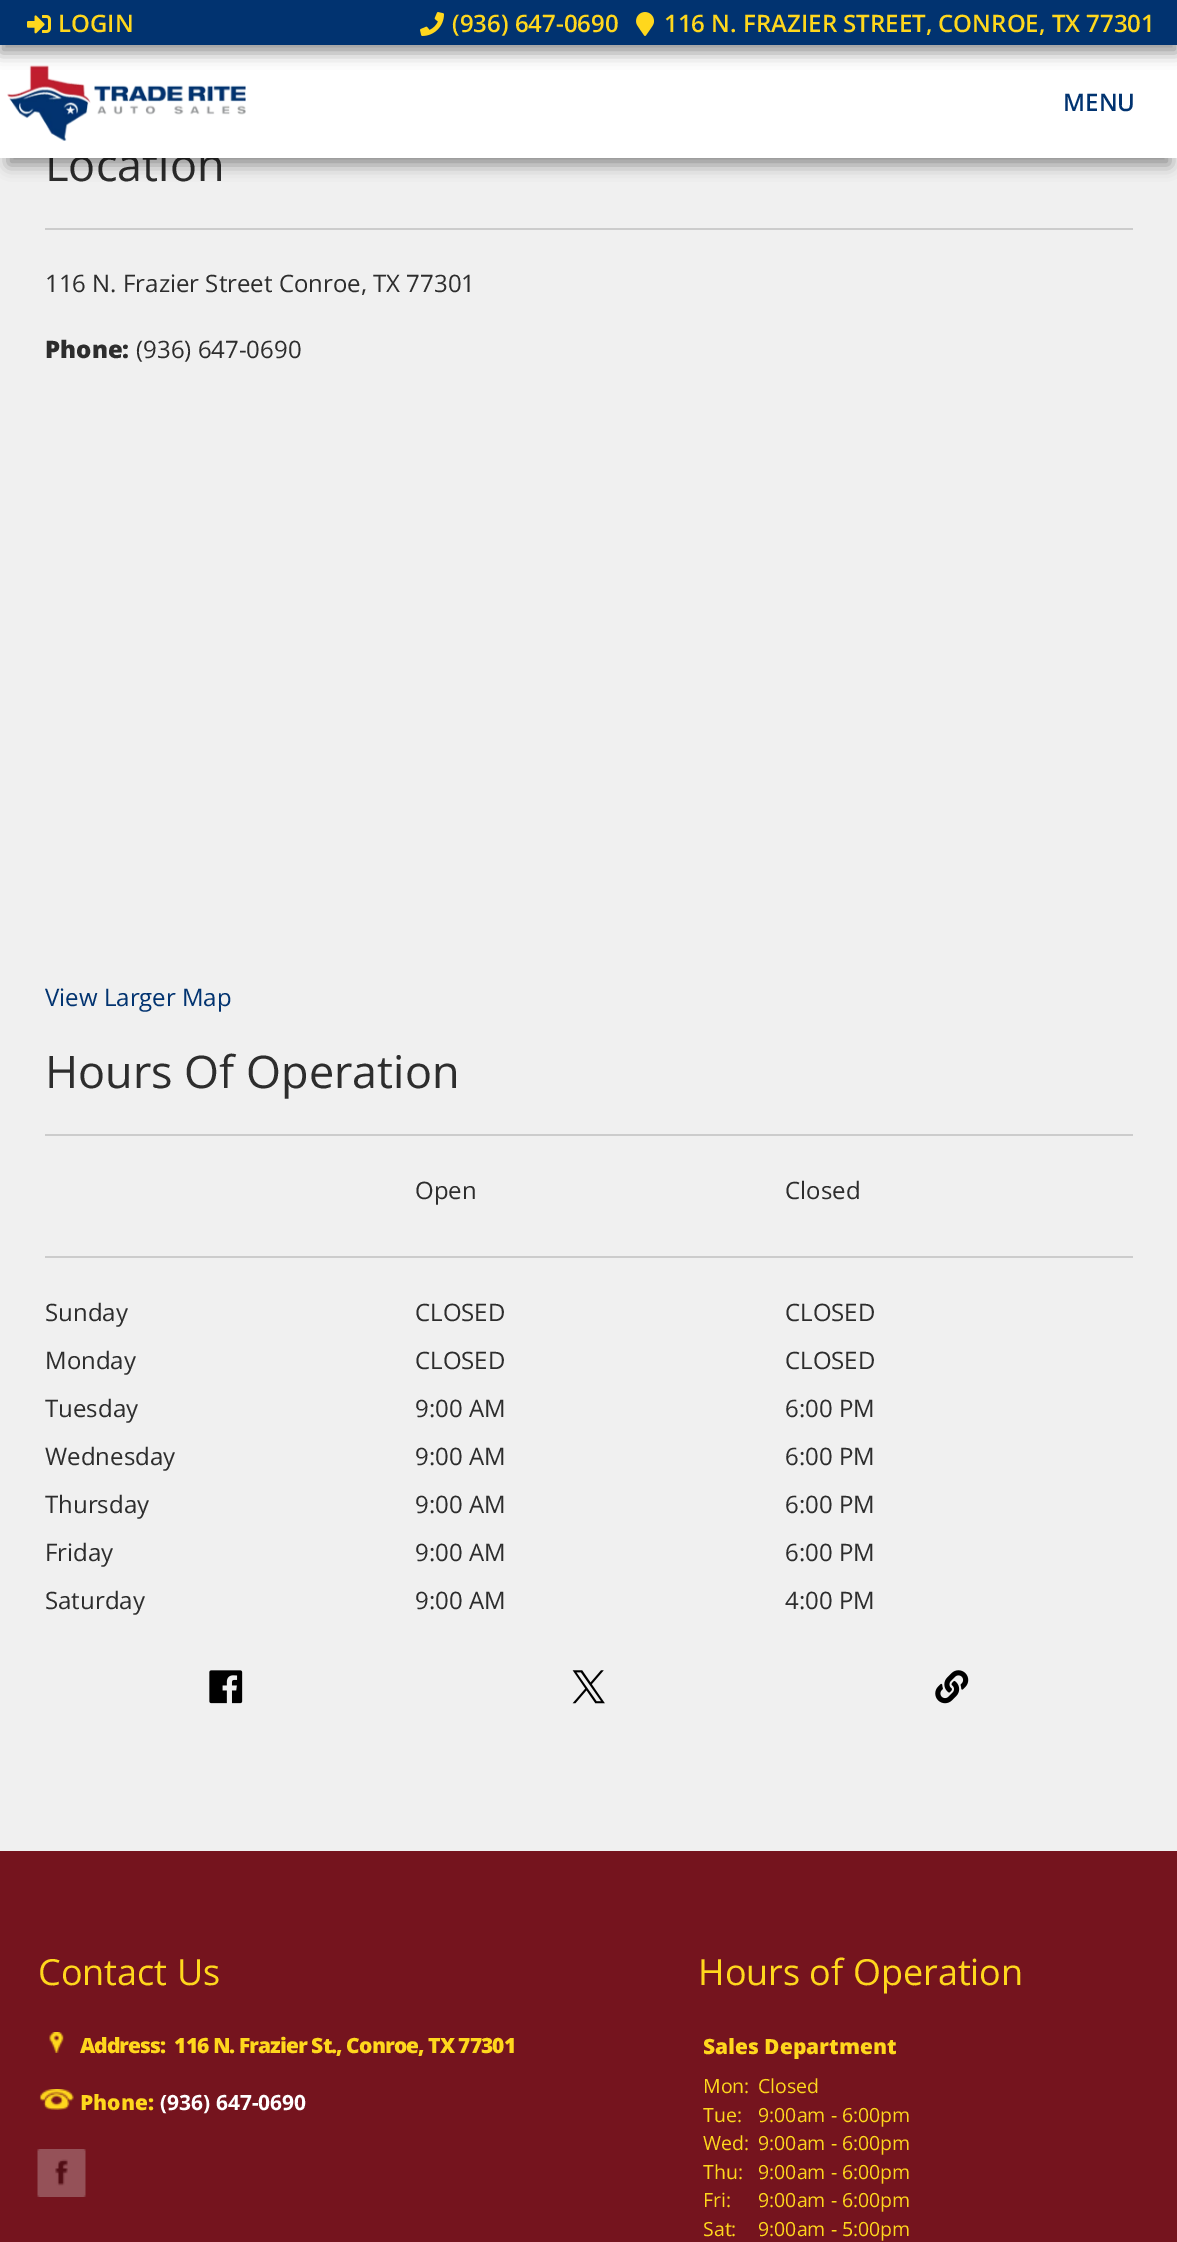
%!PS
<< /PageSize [1177 2242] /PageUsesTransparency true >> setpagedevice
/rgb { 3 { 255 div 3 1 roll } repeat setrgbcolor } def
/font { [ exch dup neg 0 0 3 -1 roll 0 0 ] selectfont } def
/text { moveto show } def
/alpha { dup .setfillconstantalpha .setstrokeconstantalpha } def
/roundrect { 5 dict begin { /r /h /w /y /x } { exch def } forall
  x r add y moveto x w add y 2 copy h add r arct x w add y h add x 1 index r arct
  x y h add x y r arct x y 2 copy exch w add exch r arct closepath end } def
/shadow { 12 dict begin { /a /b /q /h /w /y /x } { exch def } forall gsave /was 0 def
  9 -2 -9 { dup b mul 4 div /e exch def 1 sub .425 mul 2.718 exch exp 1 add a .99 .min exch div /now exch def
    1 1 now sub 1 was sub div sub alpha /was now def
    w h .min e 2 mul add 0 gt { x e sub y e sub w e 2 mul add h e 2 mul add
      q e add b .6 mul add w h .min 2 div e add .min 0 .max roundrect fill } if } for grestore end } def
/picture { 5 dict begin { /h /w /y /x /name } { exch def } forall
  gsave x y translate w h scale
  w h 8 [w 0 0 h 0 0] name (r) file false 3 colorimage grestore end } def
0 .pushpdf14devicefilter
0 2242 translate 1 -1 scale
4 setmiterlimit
240 240 240 rgb
0 0 1177 2242 rectfill
204 204 204 rgb
45 228 1088 2 rectfill
45 1134 1088 2 rectfill
45 1256 1088 2 rectfill
(img_05.rgb) 209 1670 34 34 picture
(img_06.rgb) 572 1670 33 34 picture
(img_07.rgb) 935 1670 34 34 picture
117 20 30 rgb
0 1851 1177 391 rectfill
(img_08.rgb) 49 2032 15 21 picture
(img_09.rgb) 39 2089 35 21 picture
(img_10.rgb) 37 2149 49 48 picture
/OpenSans-Regular 45 font
45 45 45 rgb
(Location) 45 181 text
255 255 255 rgb
0 45 1177 113 rectfill
gsave
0 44 moveto 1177 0 rlineto 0 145 rlineto -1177 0 rlineto closepath 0 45 moveto 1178 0 rlineto 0 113 rlineto -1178 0 rlineto closepath eoclip newpath
0 0 0 rgb
8 68 1162 97 0 7.5 0.4 shadow
grestore
(img_04.rgb) 7 65 239 76 picture
0 0 0 rgb
0 8 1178 45 0 7.5 0.4 shadow
1 51 112 rgb
0 0 1177 45 rectfill
(img_03.rgb) 636 12 18 24 picture
(img_02.rgb) 420 12 24 24 picture
/OpenSans-SemiBold 24 font
255 215 29 rgb
(116 N. FRAZIER STREET, CONROE, TX 77301) 664 32 text
(\(936\) 647-0690) 452 32 text
(img_01.rgb) 27 15 24 19 picture
(LOGIN) 58 32 text
1 51 112 rgb
(MENU) 1063 111 text
/OpenSans-Regular 24 font
45 45 45 rgb
(116 N. Frazier Street Conroe, TX 77301) 45 292 text
/OpenSans-ExtraBold 24 font
(Phone:) 45 358 text
/OpenSans-Regular 24 font
(\(936\) 647-0690) 136 358 text
1 51 112 rgb
(View Larger Map) 45 1006 text
/OpenSans-Regular 45 font
45 45 45 rgb
(Hours Of Operation) 45 1088 text
/OpenSans-Regular 24 font
(Open) 415 1199 text
(Closed) 785 1199 text
(Sunday) 45 1321 text
(CLOSED) 415 1321 text
(CLOSED) 785 1321 text
(Monday) 45 1369 text
(CLOSED) 415 1369 text
(CLOSED) 785 1369 text
(Tuesday) 45 1417 text
(9:00 AM) 415 1417 text
(6:00 PM) 785 1417 text
(Wednesday) 45 1465 text
(9:00 AM) 415 1465 text
(6:00 PM) 785 1465 text
(Thursday) 45 1513 text
(9:00 AM) 415 1513 text
(6:00 PM) 785 1513 text
(Friday) 45 1561 text
(9:00 AM) 415 1561 text
(6:00 PM) 785 1561 text
(Saturday) 45 1609 text
(9:00 AM) 415 1609 text
(4:00 PM) 785 1609 text
/OpenSans-Regular 36 font
255 215 29 rgb
(Contact Us) 38 1985 text
/OpenSans-ExtraBold 21 font
80 2053 moveto -0.95 0 (Address:  116 N. Frazier St., Conroe, TX 77301) ashow
(Phone:) 80 2110 text
/OpenSans-Bold 21 font
255 255 255 rgb
(\(936\) 647-0690) 160 2110 text
/OpenSans-Regular 36 font
255 215 29 rgb
(Hours of Operation) 698 1985 text
/OpenSans-ExtraBold 21 font
(Sales Department) 703 2054 text
/OpenSans-Regular 19.5 font
(Mon:) 703 2093 text
(Closed) 758 2093 text
(Tue:) 703 2122 text
(9:00am - 6:00pm) 758 2122 text
(Wed:) 703 2150 text
(9:00am - 6:00pm) 758 2150 text
(Thu:) 703 2179 text
(9:00am - 6:00pm) 758 2179 text
(Fri:) 703 2207 text
(9:00am - 6:00pm) 758 2207 text
(Sat:) 703 2236 text
(9:00am - 5:00pm) 758 2236 text
.poppdf14devicefilter showpage
